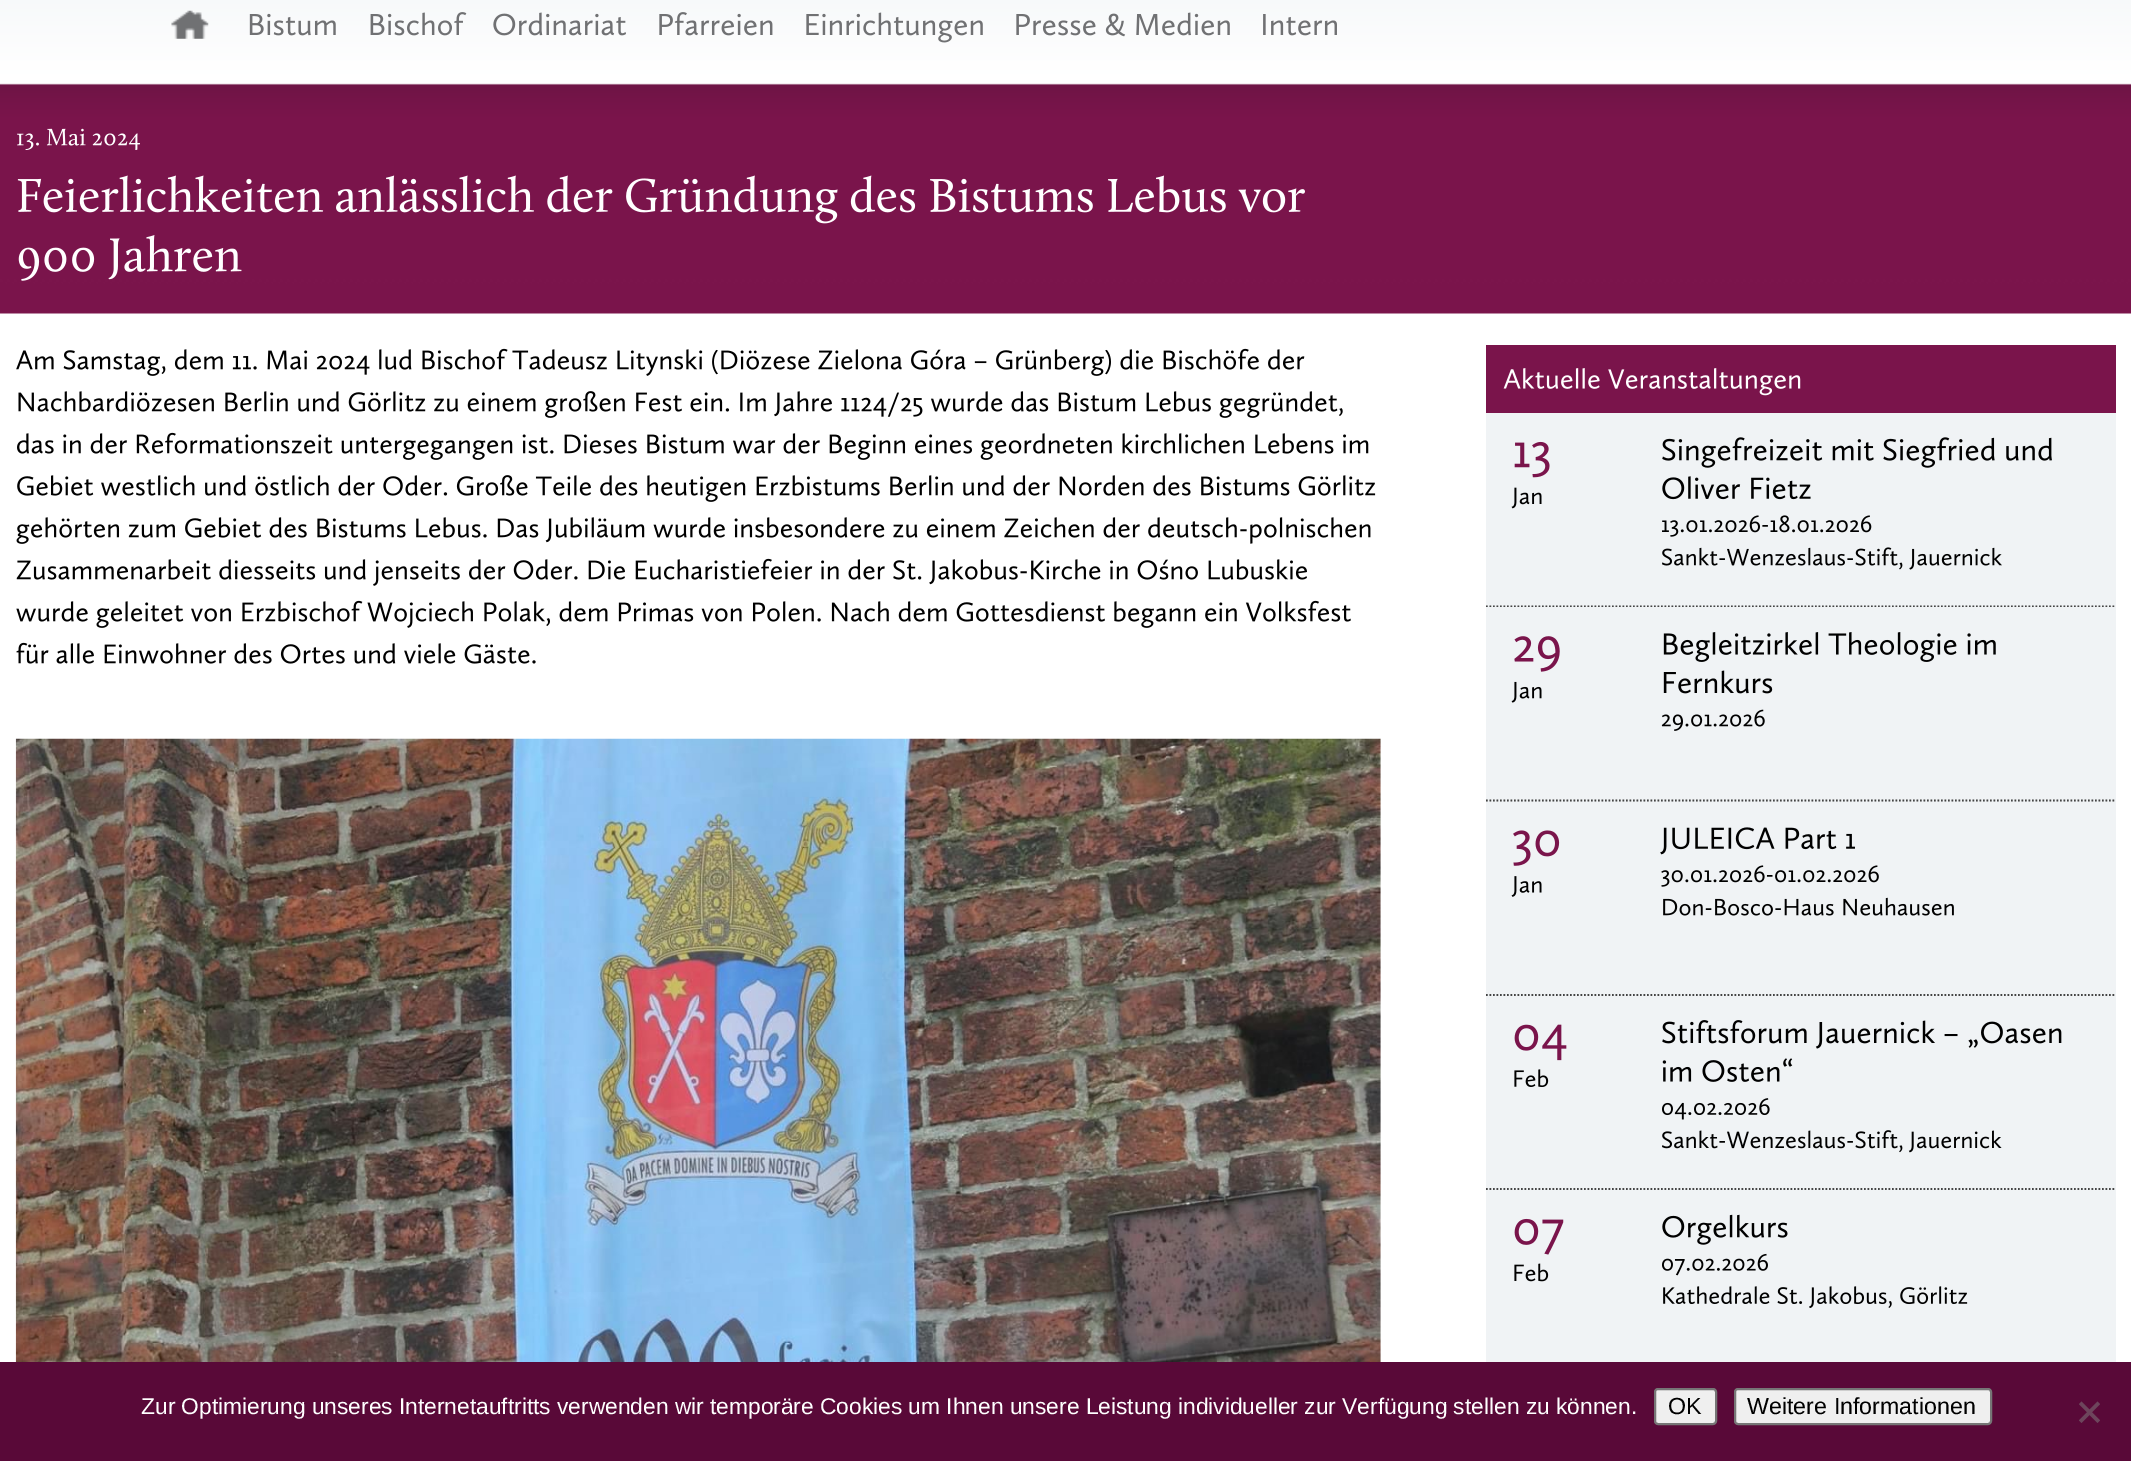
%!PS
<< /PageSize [2131 1461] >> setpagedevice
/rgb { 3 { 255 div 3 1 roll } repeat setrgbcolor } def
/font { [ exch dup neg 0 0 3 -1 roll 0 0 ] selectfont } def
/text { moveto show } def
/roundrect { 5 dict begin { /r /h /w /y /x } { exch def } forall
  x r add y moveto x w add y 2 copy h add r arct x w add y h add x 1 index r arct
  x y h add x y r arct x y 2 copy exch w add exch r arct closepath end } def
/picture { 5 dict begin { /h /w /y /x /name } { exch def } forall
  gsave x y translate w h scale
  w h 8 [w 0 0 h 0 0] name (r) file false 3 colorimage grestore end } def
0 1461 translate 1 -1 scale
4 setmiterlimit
255 255 255 rgb
0 0 2131 1461 rectfill
(img_01.rgb) 0 0 2131 314 picture
(img_02.rgb) 171 10 38 29 picture
(img_03.rgb) 249 13 87 23 picture
(img_04.rgb) 370 12 97 24 picture
(img_05.rgb) 493 12 133 24 picture
(img_06.rgb) 659 12 114 24 picture
(img_07.rgb) 806 12 177 31 picture
(img_08.rgb) 1016 12 214 25 picture
(img_09.rgb) 1263 14 74 22 picture
(img_10.rgb) 17 128 123 22 picture
(img_11.rgb) 17 175 1288 49 picture
(img_12.rgb) 18 235 224 46 picture
(img_13.rgb) 16 348 1289 28 picture
(img_14.rgb) 18 391 1325 27 picture
(img_15.rgb) 17 432 1352 28 picture
(img_16.rgb) 17 475 1359 27 picture
(img_17.rgb) 16 517 1355 27 picture
(img_18.rgb) 16 558 1291 28 picture
(img_19.rgb) 16 600 1335 28 picture
(img_20.rgb) 16 642 520 22 picture
(img_21.rgb) 15 738 1366 624 picture
122 20 75 rgb
1486 345 630 68 rectfill
(img_22.rgb) 1503 368 298 28 picture
240 243 245 rgb
1486 413 630 194 rectfill
68 68 68 rgb
1.8 setlinewidth
[1.75 1.75] 0 setdash
1486 606.5 moveto 630 0 rlineto stroke
(img_23.rgb) 1514 441 36 37 picture
(img_24.rgb) 1511 487 31 22 picture
(img_25.rgb) 1662 437 390 31 picture
(img_26.rgb) 1662 476 149 24 picture
(img_27.rgb) 1662 515 210 22 picture
(img_28.rgb) 1662 547 340 23 picture
240 243 245 rgb
1486 607 630 755 rectfill
68 68 68 rgb
1486 800.5 moveto 630 0 rlineto stroke
(img_29.rgb) 1514 636 46 36 picture
(img_30.rgb) 1511 681 31 22 picture
(img_31.rgb) 1663 632 333 30 picture
(img_32.rgb) 1663 670 110 24 picture
(img_33.rgb) 1661 709 104 22 picture
1486 995 moveto 630 0 rlineto stroke
(img_34.rgb) 1513 830 47 36 picture
(img_35.rgb) 1511 876 31 21 picture
(img_36.rgb) 1660 827 195 28 picture
(img_37.rgb) 1661 865 218 22 picture
(img_38.rgb) 1663 898 171 18 picture
(img_39.rgb) 1843 897 111 19 picture
1486 1189 moveto 630 0 rlineto stroke
(img_40.rgb) 1514 1024 53 37 picture
(img_41.rgb) 1514 1069 35 18 picture
(img_42.rgb) 1662 1020 400 29 picture
(img_43.rgb) 1662 1058 131 24 picture
(img_44.rgb) 1662 1098 108 22 picture
(img_45.rgb) 1662 1130 241 23 picture
(img_46.rgb) 1908 1130 94 23 picture
(img_47.rgb) 1514 1218 50 37 picture
(img_48.rgb) 1514 1263 35 19 picture
(img_49.rgb) 1662 1214 126 31 picture
(img_50.rgb) 1662 1253 106 23 picture
(img_51.rgb) 1663 1286 305 22 picture
89 9 56 rgb
0 1362 2131 99 rectfill
239 239 239 rgb
1655 1389 61 35 3 roundrect gsave fill grestore
118 118 118 rgb
2 setlinewidth
[] 0 setdash
stroke
239 239 239 rgb
1735 1389 256 35 3 roundrect gsave fill grestore
118 118 118 rgb
stroke
109 69 92 rgb
2097.5 1401.5 moveto 2.5 2.5 rlineto -18.5 19 rlineto -2.5 -2.5 rlineto closepath fill
2079 1404 moveto 2.5 -2.5 rlineto 18.5 19 rlineto -2.5 2.5 rlineto closepath fill
/LiberationSans-Regular 22.75 font
255 255 255 rgb
(Zur Optimierung unseres Internetauftritts verwenden wir temporäre Cookies um Ihnen unsere Leistung individueller zur Verfügung stellen zu können.) 141 1414 text
/LiberationSans-Regular 23.25 font
0 0 0 rgb
(OK) 1668 1414 text
(Weitere Informationen) 1747 1414 text
showpage
